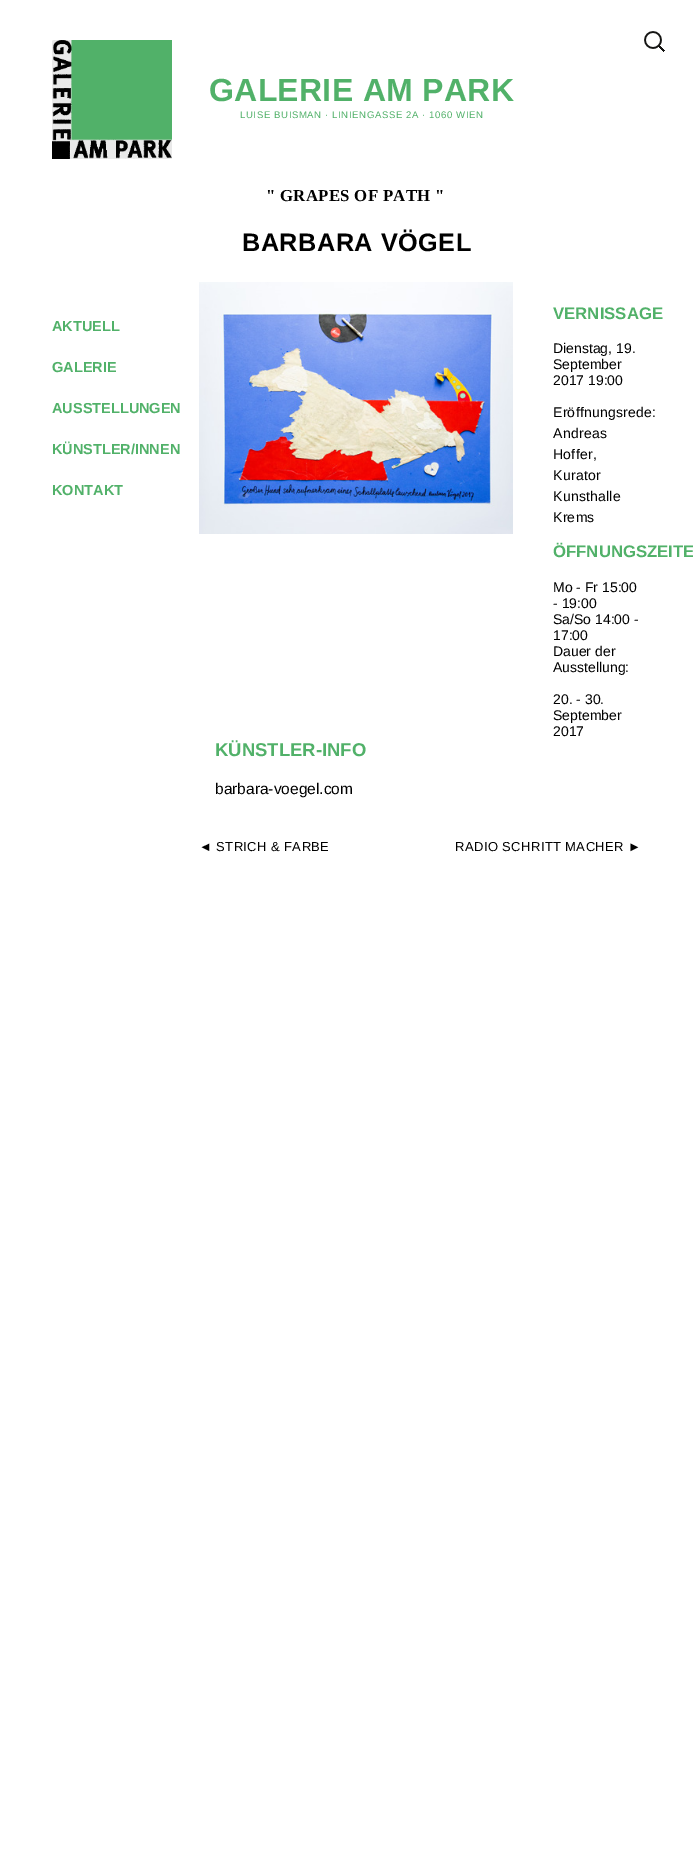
%!PS
<< /PageSize [693 1850] >> setpagedevice
/rgb { 3 { 255 div 3 1 roll } repeat setrgbcolor } def
/font { [ exch dup neg 0 0 3 -1 roll 0 0 ] selectfont } def
/text { moveto show } def
/picture { 5 dict begin { /h /w /y /x /name } { exch def } forall
  gsave x y translate w h scale
  w h 8 [w 0 0 h 0 0] name (r) file false 3 colorimage grestore end } def
0 1850 translate 1 -1 scale
4 setmiterlimit
255 255 255 rgb
0 0 693 1850 rectfill
(img_01.rgb) 644 31 21 21 picture
(img_02.rgb) 52 40 120 119 picture
(img_03.rgb) 199 282 314 252 picture
/LiberationSans-Bold 32 font
81 177 105 rgb
209 101 moveto 0.3 0 (GALERIE AM PARK) ashow
/LiberationSans-Regular 9.6 font
240 118 moveto 0.6 0 (LUISE BUISMAN · LINIENGASSE 2A · 1060 WIEN) ashow
/LiberationSans-Bold 14.5 font
(AKTUELL) 52 331 text
(GALERIE) 52 372 text
(AUSSTELLUNGEN) 52 413 text
(KÜNSTLER/INNEN) 52 454 text
(KONTAKT) 52 495 text
/LiberationSerif-Bold 16.75 font
0 0 0 rgb
266 201 moveto 0.3 0 (" GRAPES OF PATH ") ashow
/LiberationSans-Bold 25.25 font
242 251 moveto 0.5 0 (BARBARA VÖGEL) ashow
/LiberationSans-Bold 16.75 font
81 177 105 rgb
(VERNISSAGE) 553 319 text
/LiberationSans-Regular 14 font
0 0 0 rgb
(Dienstag, 19.) 553 353 text
(September) 553 369 text
(2017 19:00) 553 385 text
553 417 moveto 0.25 0 (Eröffnungsrede:) ashow
553 438 moveto 0.25 0 (Andreas) ashow
553 459 moveto 0.25 0 (Hoffer,) ashow
553 480 moveto 0.25 0 (Kurator) ashow
553 501 moveto 0.25 0 (Kunsthalle) ashow
553 522 moveto 0.25 0 (Krems) ashow
/LiberationSans-Bold 16.75 font
81 177 105 rgb
(ÖFFNUNGSZEITE) 553 557 text
/LiberationSans-Regular 14 font
0 0 0 rgb
(Mo - Fr 15:00) 553 592 text
(- 19:00) 553 608 text
(Sa/So 14:00 -) 553 624 text
(17:00) 553 640 text
(Dauer der) 553 656 text
(Ausstellung:) 553 672 text
(20. - 30.) 553 704 text
(September) 553 720 text
(2017) 553 736 text
/LiberationSans-Bold 18.5 font
81 177 105 rgb
(KÜNSTLER-INFO) 215 756 text
/LiberationSans-Regular 15.5 font
0 0 0 rgb
(barbara-voegel.com) 215 794 text
/LiberationSans-Regular 13 font
199 851 moveto 0.4 0 (◄ STRICH & FARBE) ashow
455 851 moveto 0.4 0 (RADIO SCHRITT MACHER ►) ashow
showpage
